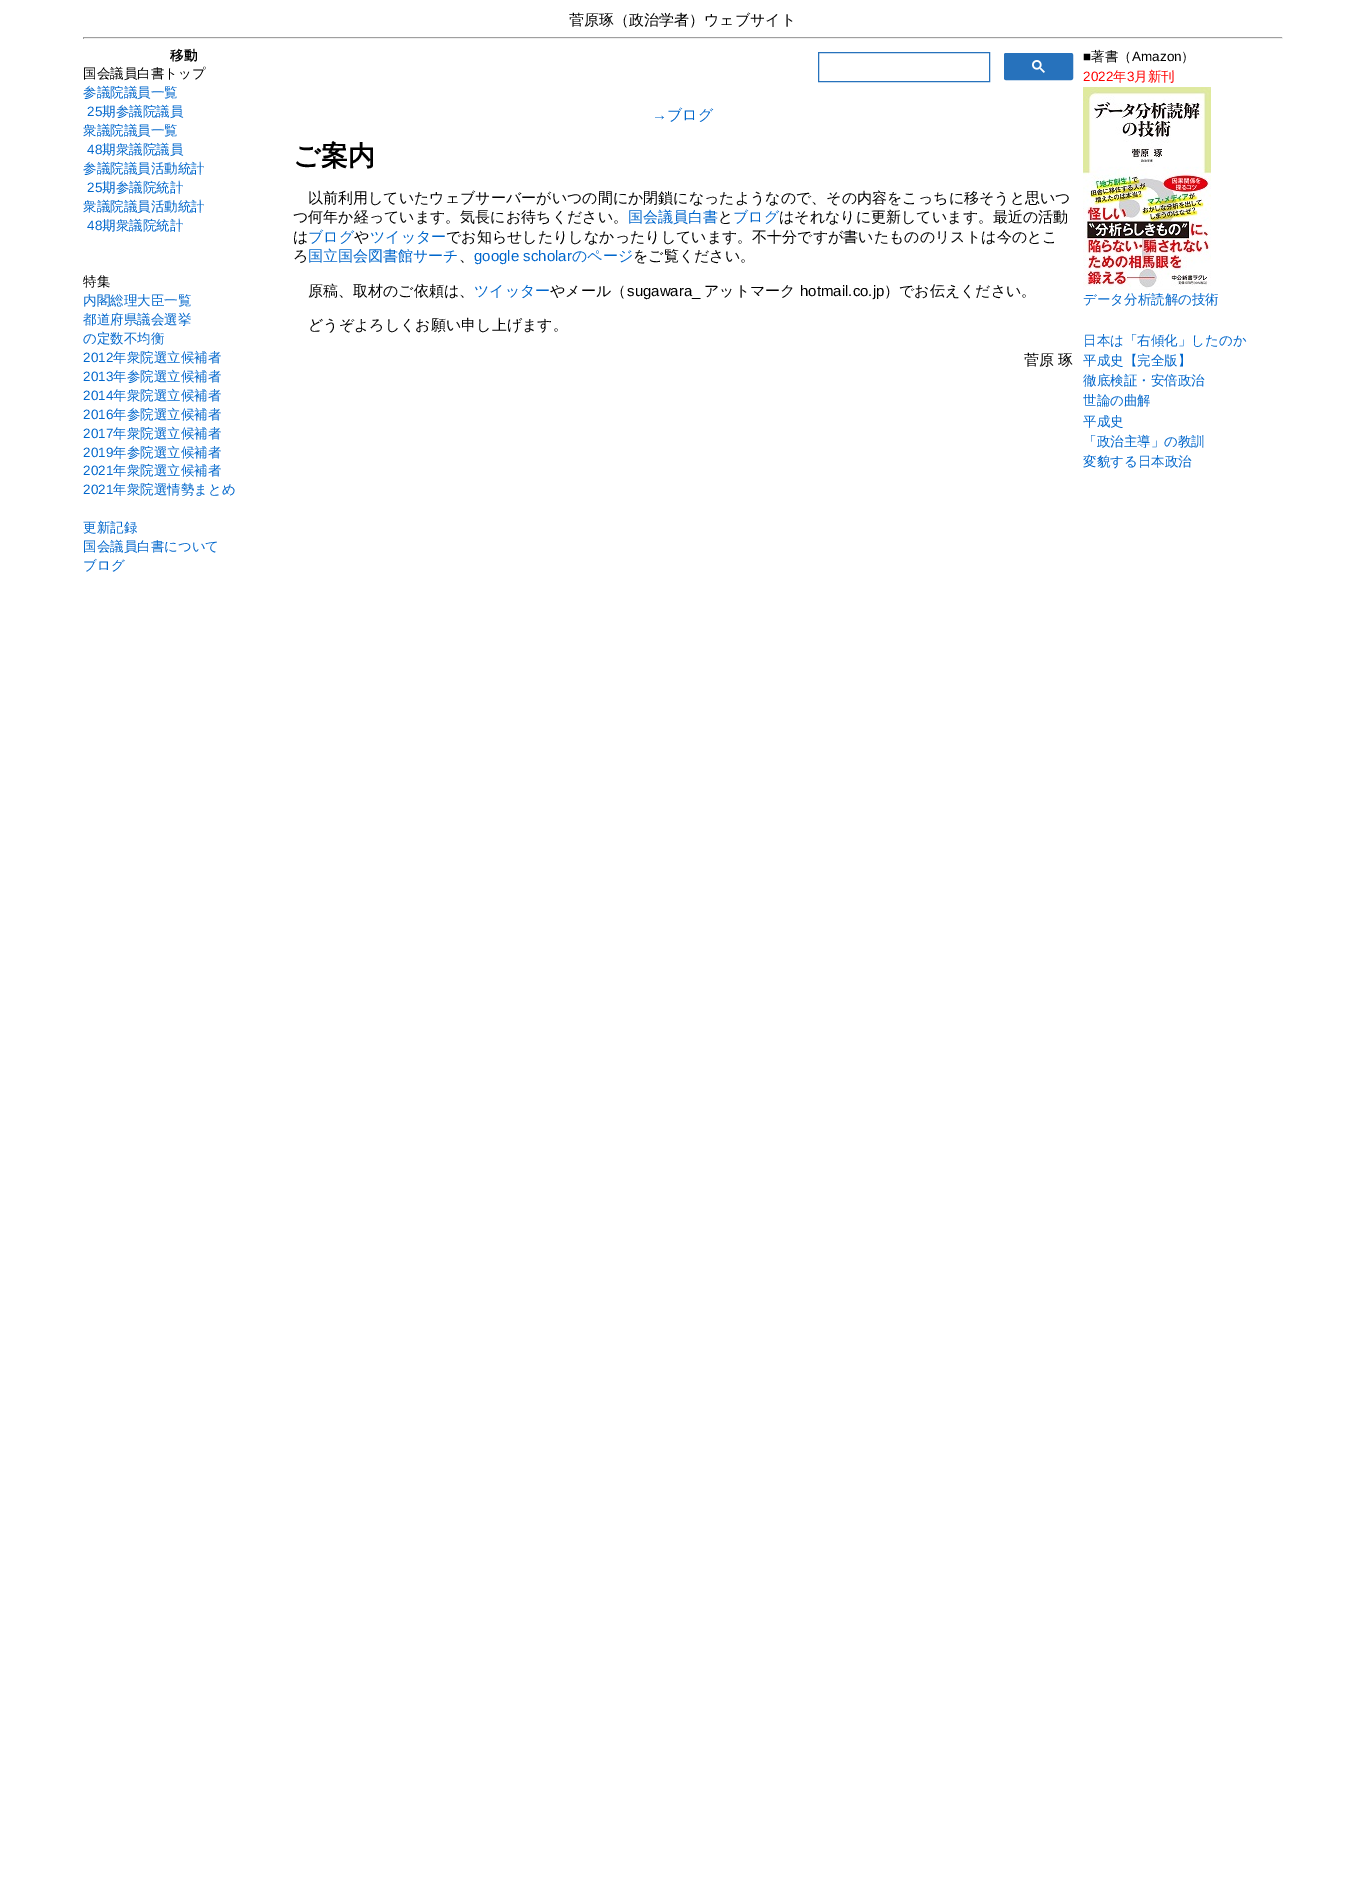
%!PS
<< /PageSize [1366 1882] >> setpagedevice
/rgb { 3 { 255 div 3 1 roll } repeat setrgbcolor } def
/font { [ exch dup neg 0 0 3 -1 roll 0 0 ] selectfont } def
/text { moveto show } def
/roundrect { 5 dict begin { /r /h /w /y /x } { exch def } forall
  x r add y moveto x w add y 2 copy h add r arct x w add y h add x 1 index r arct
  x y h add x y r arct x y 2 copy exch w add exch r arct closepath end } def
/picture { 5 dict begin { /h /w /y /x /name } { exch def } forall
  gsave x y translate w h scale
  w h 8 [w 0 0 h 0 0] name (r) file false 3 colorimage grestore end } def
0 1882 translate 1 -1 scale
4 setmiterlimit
255 255 255 rgb
0 0 1366 1882 rectfill
159 159 159 rgb
83 37 1200 1 rectfill
238 238 238 rgb
1282 37 1 2 rectfill
83 38 1200 1 rectfill
159 159 159 rgb
83 37 1 2 rectfill
39 114 188 rgb
818.5 52.5 171 29 rectstroke
1004.5 53.5 68 26 1.5 roundrect gsave fill grestore
stroke
(img_01.rgb) 1032 60 13 13 picture
(img_02.rgb) 1083 87 128 203 picture
/WenQuanYiZenHei-Medium 15 font
0 0 0 rgb
(菅原琢（政治学者）ウェブサイト) 569 25 text
/WenQuanYiZenHei-Bold 13.5 font
(移動) 170 60 text
/WenQuanYiZenHei-Medium 13.5 font
(国会議員白書トップ) 83 78 text
0 102 204 rgb
(参議院議員一覧) 83 97 text
/LiberationSans-Regular 13.5 font
(25) 87 116 text
/WenQuanYiZenHei-Medium 13.5 font
(期参議院議員) 102 116 text
(衆議院議員一覧) 83 135 text
/LiberationSans-Regular 13.5 font
(48) 87 154 text
/WenQuanYiZenHei-Medium 13.5 font
(期衆議院議員) 102 154 text
(参議院議員活動統計) 83 173 text
/LiberationSans-Regular 13.5 font
(25) 87 192 text
/WenQuanYiZenHei-Medium 13.5 font
(期参議院統計) 102 192 text
(衆議院議員活動統計) 83 211 text
/LiberationSans-Regular 13.5 font
(48) 87 230 text
/WenQuanYiZenHei-Medium 13.5 font
(期衆議院統計) 102 230 text
0 0 0 rgb
(特集) 83 286 text
0 102 204 rgb
(内閣総理大臣一覧) 83 305 text
(都道府県議会選挙) 83 324 text
(の定数不均衡) 83 343 text
/LiberationSans-Regular 13.5 font
(2012) 83 362 text
/WenQuanYiZenHei-Medium 13.5 font
(年衆院選立候補者) 113 362 text
/LiberationSans-Regular 13.5 font
(2013) 83 381 text
/WenQuanYiZenHei-Medium 13.5 font
(年参院選立候補者) 113 381 text
/LiberationSans-Regular 13.5 font
(2014) 83 400 text
/WenQuanYiZenHei-Medium 13.5 font
(年衆院選立候補者) 113 400 text
/LiberationSans-Regular 13.5 font
(2016) 83 419 text
/WenQuanYiZenHei-Medium 13.5 font
(年参院選立候補者) 113 419 text
/LiberationSans-Regular 13.5 font
(2017) 83 438 text
/WenQuanYiZenHei-Medium 13.5 font
(年衆院選立候補者) 113 438 text
/LiberationSans-Regular 13.5 font
(2019) 83 457 text
/WenQuanYiZenHei-Medium 13.5 font
(年参院選立候補者) 113 457 text
/LiberationSans-Regular 13.5 font
(2021) 83 475 text
/WenQuanYiZenHei-Medium 13.5 font
(年衆院選立候補者) 113 475 text
/LiberationSans-Regular 13.5 font
(2021) 83 494 text
/WenQuanYiZenHei-Medium 13.5 font
(年衆院選情勢まとめ) 113 494 text
(更新記録) 83 532 text
(国会議員白書について) 83 551 text
(ブログ) 83 570 text
/LiberationSans-Regular 15 font
(→) 652 120 text
/WenQuanYiZenHei-Medium 15 font
(ブログ) 667 120 text
/WenQuanYiZenHei-Bold 27 font
0 0 0 rgb
(ご案内) 293 165 text
/WenQuanYiZenHei-Medium 15 font
(以前利用していたウェブサーバーがいつの間にか閉鎖になったようなので、その内容をこっちに移そうと思いつ) 308 203 text
(つ何年か経っています。気長にお待ちください。) 293 222 text
0 102 204 rgb
(国会議員白書) 628 222 text
0 0 0 rgb
(と) 718 222 text
0 102 204 rgb
(ブログ) 733 222 text
0 0 0 rgb
(はそれなりに更新しています。最近の活動) 779 222 text
(は) 293 242 text
0 102 204 rgb
(ブログ) 308 242 text
0 0 0 rgb
(や) 354 242 text
0 102 204 rgb
(ツイッター) 370 242 text
0 0 0 rgb
(でお知らせしたりしなかったりしています。不十分ですが書いたもののリストは今のとこ) 446 242 text
(ろ) 293 261 text
0 102 204 rgb
(国立国会図書館サーチ) 308 261 text
0 0 0 rgb
(、) 459 261 text
/LiberationSans-Regular 15 font
0 102 204 rgb
(google scholar) 474 261 text
/WenQuanYiZenHei-Medium 15 font
(のページ) 572 261 text
0 0 0 rgb
(をご覧ください。) 633 261 text
(原稿、取材のご依頼は、) 308 296 text
0 102 204 rgb
(ツイッター) 474 296 text
0 0 0 rgb
(やメール（) 550 296 text
/LiberationSans-Regular 15 font
(sugawara_) 627 296 text
/WenQuanYiZenHei-Medium 15 font
(アットマーク) 704 296 text
/LiberationSans-Regular 15 font
(hotmail.co.jp) 800 296 text
/WenQuanYiZenHei-Medium 15 font
(）でお伝えください。) 884 296 text
(どうぞよろしくお願い申し上げます。) 308 330 text
(菅原 琢) 1024 365 text
/LiberationSans-Regular 13.5 font
(■) 1083 61 text
/WenQuanYiZenHei-Medium 13.5 font
(著書（) 1091 61 text
/LiberationSans-Regular 13.5 font
(Amazon) 1132 61 text
/WenQuanYiZenHei-Medium 13.5 font
(）) 1181 61 text
/LiberationSans-Regular 13.5 font
255 0 0 rgb
(2022) 1083 81 text
/WenQuanYiZenHei-Medium 13.5 font
(年) 1113 81 text
/LiberationSans-Regular 13.5 font
(3) 1127 81 text
/WenQuanYiZenHei-Medium 13.5 font
(月新刊) 1134 81 text
0 102 204 rgb
(データ分析読解の技術) 1083 304 text
(日本は「右傾化」したのか) 1083 345 text
(平成史【完全版】) 1083 365 text
(徹底検証・安倍政治) 1083 385 text
(世論の曲解) 1083 405 text
(平成史) 1083 426 text
(「政治主導」の教訓) 1083 446 text
(変貌する日本政治) 1083 466 text
showpage
